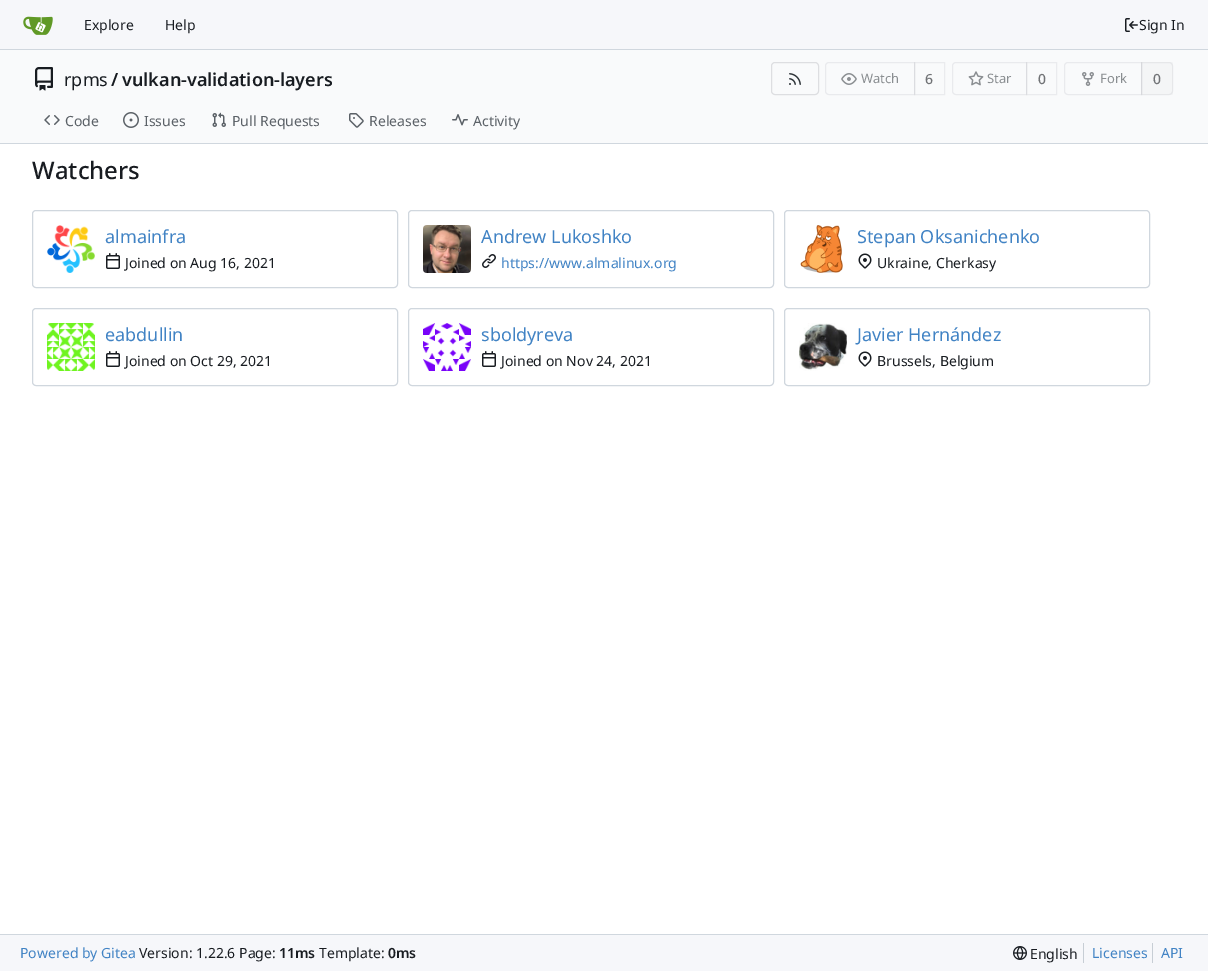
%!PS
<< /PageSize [1208 971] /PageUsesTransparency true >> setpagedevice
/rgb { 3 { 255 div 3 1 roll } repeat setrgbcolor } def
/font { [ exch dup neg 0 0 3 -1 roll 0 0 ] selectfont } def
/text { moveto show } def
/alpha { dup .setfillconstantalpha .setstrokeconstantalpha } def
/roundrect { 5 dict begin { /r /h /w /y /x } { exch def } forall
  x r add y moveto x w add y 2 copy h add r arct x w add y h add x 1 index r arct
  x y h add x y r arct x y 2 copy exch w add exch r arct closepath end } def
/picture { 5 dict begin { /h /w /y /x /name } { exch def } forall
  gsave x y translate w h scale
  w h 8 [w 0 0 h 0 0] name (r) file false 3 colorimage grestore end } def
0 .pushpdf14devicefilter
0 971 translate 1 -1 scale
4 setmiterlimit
255 255 255 rgb
0 0 1208 971 rectfill
246 247 250 rgb
0 0 1208 49 rectfill
208 215 222 rgb
0 49 1208 1 rectfill
(img_01.rgb) 23 16 30 19 picture
(img_02.rgb) 1125 18 13 14 picture
249 250 251 rgb
0 50 1208 93 rectfill
(img_03.rgb) 35 67 18 24 picture
221 222 225 rgb
771.5 62.5 47 32 3.5 roundrect stroke
(img_04.rgb) 789 73 12 12 picture
233 234 237 rgb
829 62.5 moveto 85.5 0 rlineto 0 32 rlineto -85.5 0 rlineto -2 0 -3.5 -1.5 -3.5 -3.5 rcurveto 0 -25 rlineto 0 -2 1.5 -3.5 3.5 -3.5 rcurveto closepath stroke
(img_05.rgb) 841 73 16 12 picture
0.06 alpha
0 0 23 rgb
914.5 62.5 30 32 rectstroke
1 alpha
233 234 237 rgb
956 62.5 moveto 70.5 0 rlineto 0 32 rlineto -70.5 0 rlineto -2 0 -3.5 -1.5 -3.5 -3.5 rcurveto 0 -25 rlineto 0 -2 1.5 -3.5 3.5 -3.5 rcurveto closepath stroke
(img_06.rgb) 968 71 16 15 picture
0.06 alpha
0 0 23 rgb
1026.5 62.5 30 32 rectstroke
1 alpha
233 234 237 rgb
1068 62.5 moveto 73.5 0 rlineto 0 32 rlineto -73.5 0 rlineto -2 0 -3.5 -1.5 -3.5 -3.5 rcurveto 0 -25 rlineto 0 -2 1.5 -3.5 3.5 -3.5 rcurveto closepath stroke
(img_07.rgb) 1082 72 12 14 picture
0.04 alpha
112 113 113 rgb
1141 62 32 33 rectfill
0.11 alpha
112 113 126 rgb
1141.5 62.5 moveto 27.5 0 rlineto 2 0 3.5 1.5 3.5 3.5 rcurveto 0 25 rlineto 0 2 -1.5 3.5 -3.5 3.5 rcurveto -27.5 0 rlineto closepath stroke
1 alpha
(img_08.rgb) 44 115 16 10 picture
(img_09.rgb) 123 112 16 16 picture
(img_10.rgb) 212 112 14 15 picture
(img_11.rgb) 349 113 15 15 picture
(img_12.rgb) 452 114 16 12 picture
208 215 222 rgb
0 143 1208 1 rectfill
32.5 210.5 365 77 3.5 roundrect stroke
(img_13.rgb) 47 225 48 48 picture
(img_14.rgb) 106 253 14 16 picture
408.5 210.5 365 77 3.5 roundrect stroke
(img_15.rgb) 423 225 48 48 picture
(img_16.rgb) 482 254 14 14 picture
784.5 210.5 365 77 3.5 roundrect stroke
(img_17.rgb) 800 225 43 48 picture
(img_18.rgb) 858 253 14 16 picture
32.5 308.5 365 77 3.5 roundrect stroke
(img_19.rgb) 47 323 48 48 picture
(img_14.rgb) 106 351 14 16 picture
408.5 308.5 365 77 3.5 roundrect stroke
(img_20.rgb) 423 323 48 48 picture
(img_14.rgb) 482 351 14 16 picture
784.5 308.5 365 77 3.5 roundrect stroke
(img_21.rgb) 799 323 48 48 picture
(img_18.rgb) 858 351 14 16 picture
246 247 250 rgb
0 935 1208 36 rectfill
208 215 222 rgb
0 934 1208 1 rectfill
(img_22.rgb) 1013 946 14 14 picture
199 206 213 rgb
1083 943 1 20 rectfill
1152 943 1 20 rectfill
/NotoSans-Regular 14 font
24 28 33 rgb
(Explore) 84 30 text
(Help) 165 30 text
(Sign In) 1139 30 text
/NotoSans-Regular 18 font
(rpms) 64 86 text
/NotoSans-SemiBold 18 font
(/) 111 86 text
(vulkan-validation-layers) 122 86 text
/NotoSans-Regular 13 font
138 142 145 rgb
(Watch) 861 83 text
/NotoSans-Medium 14 font
113 115 118 rgb
(6) 925 84 text
/NotoSans-Regular 13 font
138 142 145 rgb
(Star) 987 83 text
/NotoSans-Medium 14 font
113 115 118 rgb
(0) 1038 84 text
/NotoSans-Regular 13 font
138 142 145 rgb
(Fork) 1100 83 text
/NotoSans-Medium 14 font
113 115 118 rgb
(0) 1153 84 text
/NotoSans-Regular 14 font
91 97 103 rgb
(Code) 65 126 text
(Issues) 144 126 text
(Pull Requests) 232 126 text
(Releases) 369 126 text
(Activity) 473 126 text
/NotoSans-Medium 24 font
24 28 33 rgb
(Watchers) 32 179 text
/NotoSans-Regular 18 font
65 131 196 rgb
(almainfra) 105 243 text
/NotoSans-Regular 14 font
24 28 33 rgb
(Joined on Aug 16, 2021) 125 268 text
/NotoSans-Regular 18 font
65 131 196 rgb
(Andrew Lukoshko) 481 243 text
/NotoSans-Regular 14 font
(https://www.almalinux.org) 501 268 text
/NotoSans-Regular 18 font
(Stepan Oksanichenko) 857 243 text
/NotoSans-Regular 14 font
24 28 33 rgb
(Ukraine, Cherkasy) 877 268 text
/NotoSans-Regular 18 font
65 131 196 rgb
(eabdullin) 105 341 text
/NotoSans-Regular 14 font
24 28 33 rgb
(Joined on Oct 29, 2021) 125 366 text
/NotoSans-Regular 18 font
65 131 196 rgb
(sboldyreva) 481 341 text
/NotoSans-Regular 14 font
24 28 33 rgb
(Joined on Nov 24, 2021) 501 366 text
/NotoSans-Regular 18 font
65 131 196 rgb
(Javier Hernández) 857 341 text
/NotoSans-Regular 14 font
24 28 33 rgb
(Brussels, Belgium) 877 366 text
65 131 196 rgb
(Powered by Gitea) 20 958 text
24 28 33 rgb
(Version: 1.22.6 Page:) 139 958 text
/NotoSans-SemiBold 14 font
(11ms) 279 958 text
/NotoSans-Regular 14 font
(Template:) 319 958 text
/NotoSans-SemiBold 14 font
(0ms) 388 958 text
/NotoSans-Regular 14 font
(English) 1030 959 text
65 131 196 rgb
(Licenses) 1092 958 text
(API) 1161 958 text
.poppdf14devicefilter showpage
